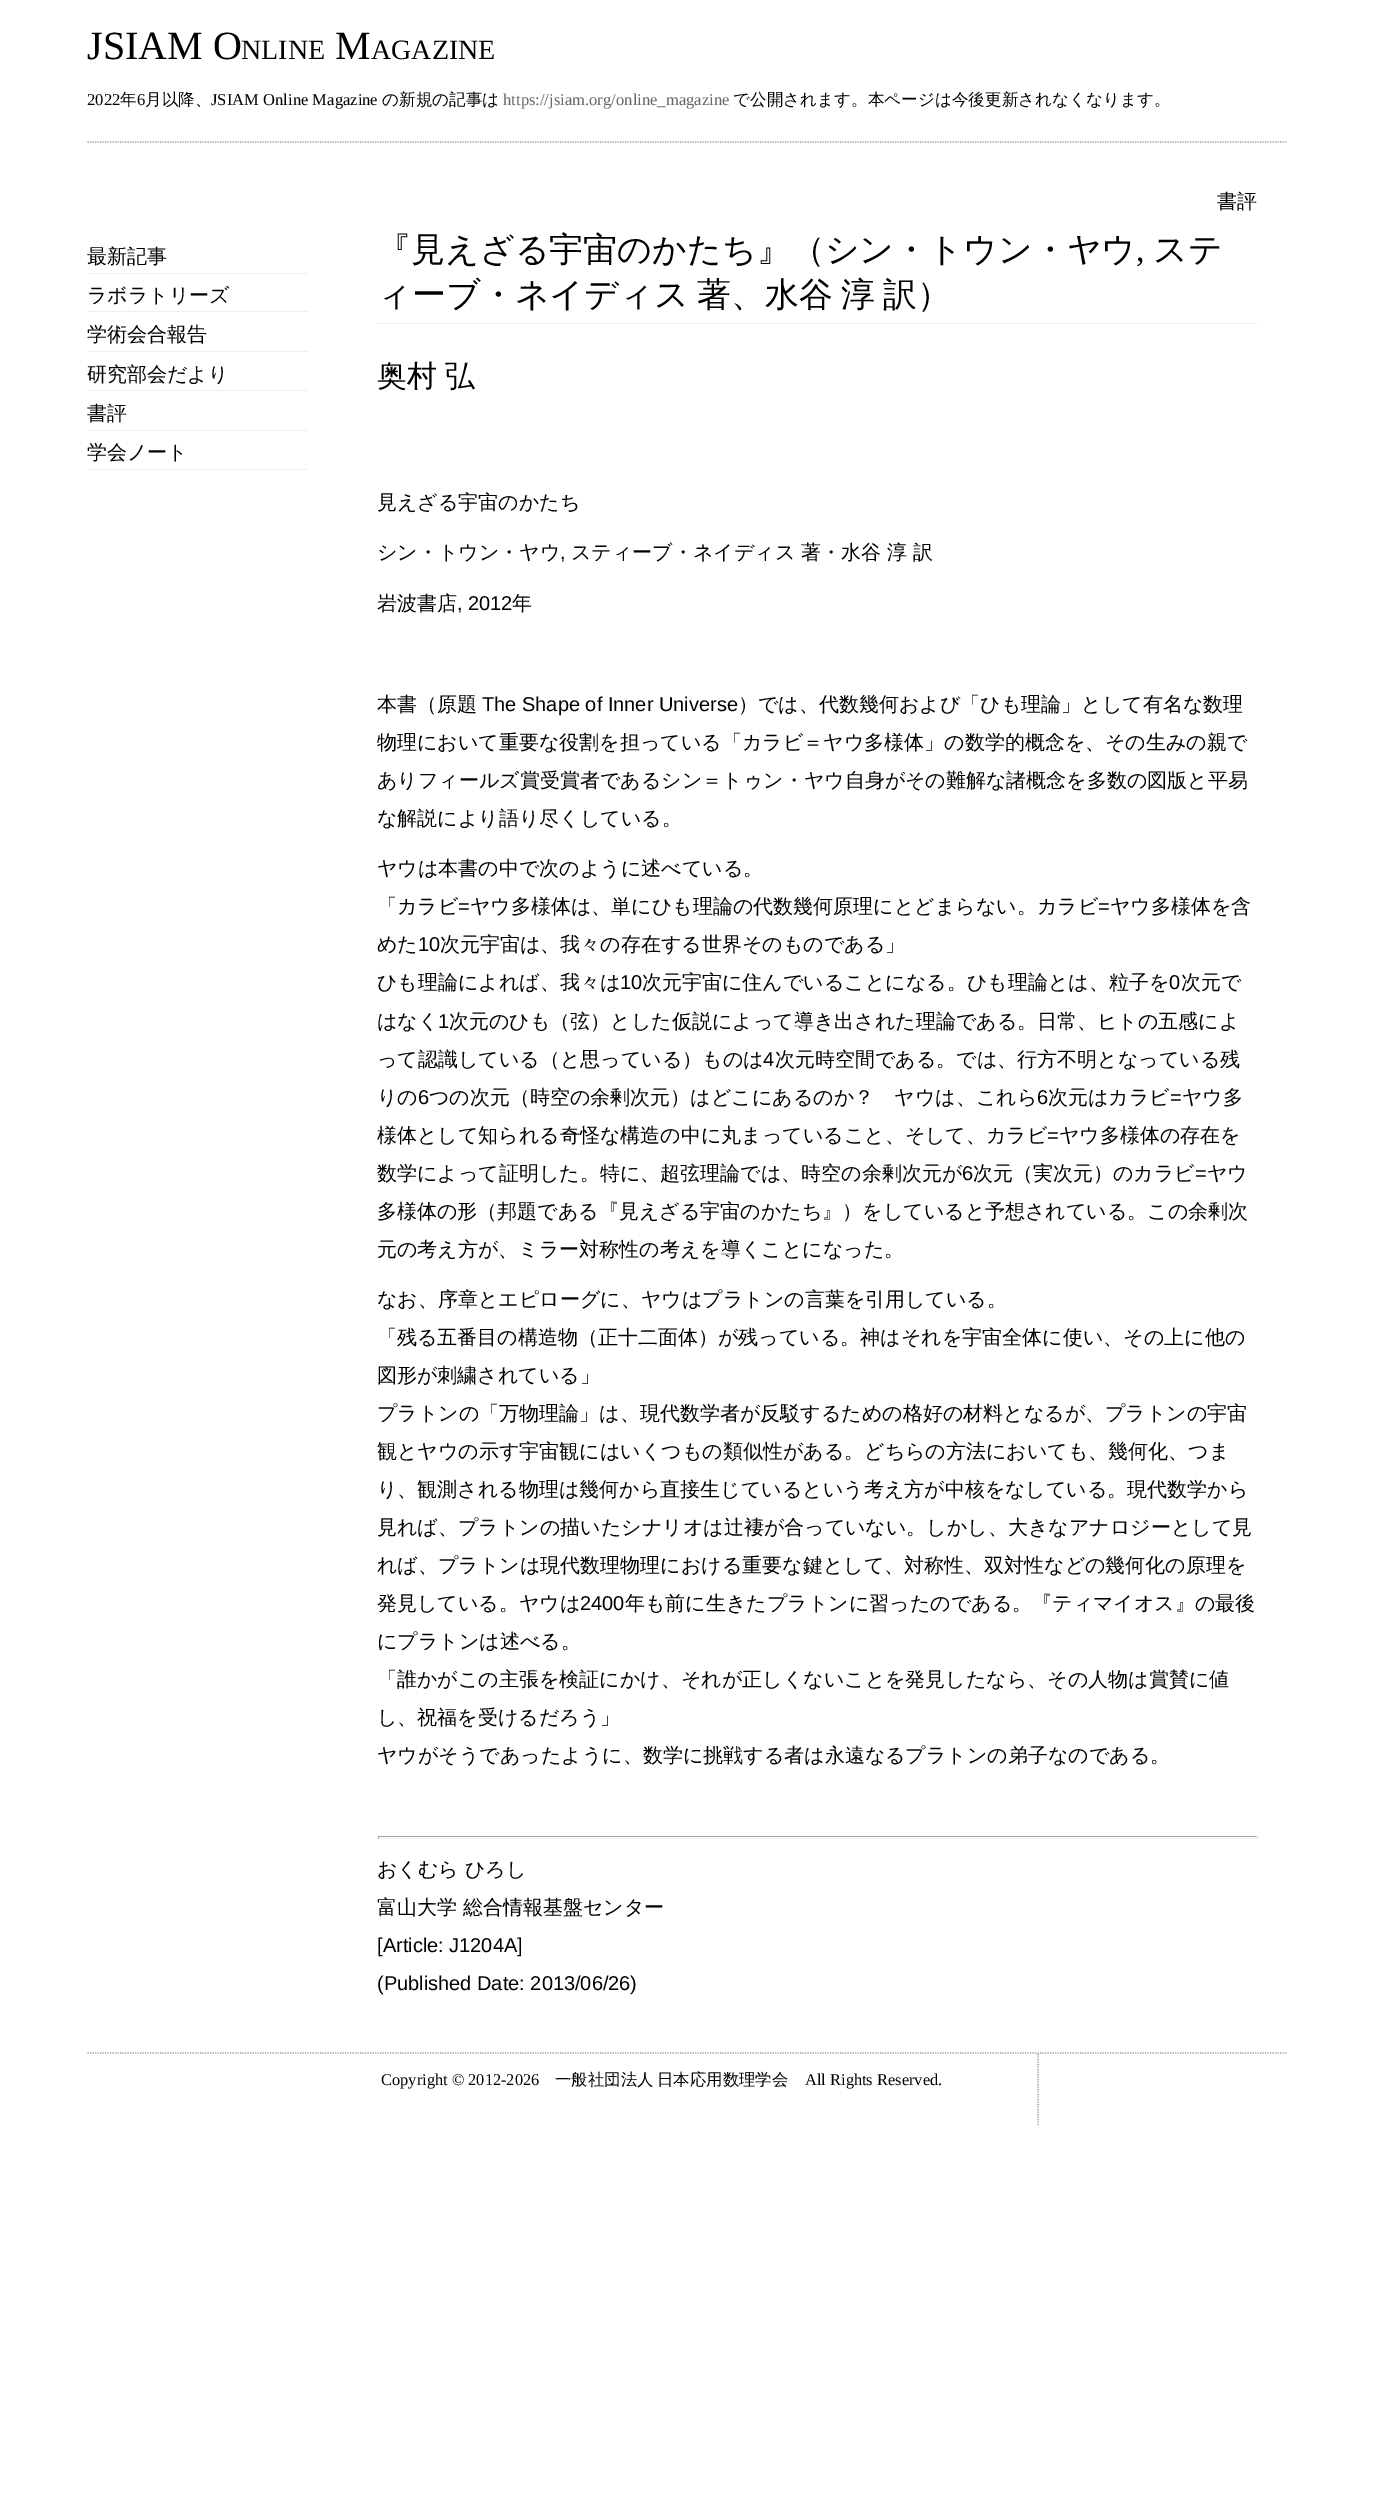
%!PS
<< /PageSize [1373 2506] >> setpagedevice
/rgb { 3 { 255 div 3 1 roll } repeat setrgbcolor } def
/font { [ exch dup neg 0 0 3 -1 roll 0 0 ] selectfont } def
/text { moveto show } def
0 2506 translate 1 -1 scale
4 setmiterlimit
255 255 255 rgb
0 0 1373 2506 rectfill
153 153 153 rgb
1.2 setlinewidth
[1.25 1.25] 0 setdash
87.5 142 moveto 1200 0 rlineto stroke
238 238 238 rgb
88 273 220 1 rectfill
88 311 220 1 rectfill
88 351 220 1 rectfill
88 390 220 1 rectfill
88 430 220 1 rectfill
88 469 220 1 rectfill
378 323 880 1 rectfill
159 159 159 rgb
378 1836 880 1 rectfill
238 238 238 rgb
1256 1836 1 3 rectfill
378 1838 880 1 rectfill
159 159 159 rgb
378 1836 1 3 rectfill
153 153 153 rgb
87.5 2053 moveto 1200 0 rlineto stroke
1038 2054 moveto 0 72 rlineto stroke
/LiberationSerif-Regular 40 font
0 0 0 rgb
(JSIAM O) 87 59 text
/LiberationSerif-Regular 28 font
(NLINE) 241 59 text
/LiberationSerif-Regular 40 font
(M) 335 59 text
/LiberationSerif-Regular 28 font
(AGAZINE) 371 59 text
/LiberationSerif-Regular 16.6 font
(2022) 87 105 text
/WenQuanYiZenHei-Medium 16.6 font
(年) 120 105 text
/LiberationSerif-Regular 16.6 font
(6) 137 105 text
/WenQuanYiZenHei-Medium 16.6 font
(月以降、) 145 105 text
/LiberationSerif-Regular 16.6 font
(JSIAM Online Magazine) 211 105 text
/WenQuanYiZenHei-Medium 16.6 font
(の新規の記事は) 382 105 text
/LiberationSerif-Regular 16.6 font
102 102 102 rgb
(https://jsiam.org/online_magazine) 503 105 text
/WenQuanYiZenHei-Medium 16.6 font
0 0 0 rgb
(で公開されます。本ページは今後更新されなくなります。) 733 105 text
/WenQuanYiZenHei-Medium 20 font
(最新記事) 87 263 text
(ラボラトリーズ) 87 302 text
(学術会合報告) 87 341 text
(研究部会だより) 87 381 text
(書評) 87 420 text
(学会ノート) 87 459 text
(書評) 1217 208 text
/WenQuanYiZenHei-Medium 34 font
(『見えざる宇宙のかたち』（シン・トウン・ヤウ) 377 261 text
/LiberationSerif-Regular 34 font
(,) 1136 261 text
/WenQuanYiZenHei-Medium 34 font
(ステ) 1153 261 text
377 306 moveto -2 0 32 (ィーブ・ネイディス 著、水谷 淳 訳）) widthshow
/WenQuanYiZenHei-Medium 30 font
377 386 moveto -1 0 32 (奥村 弘) widthshow
/WenQuanYiZenHei-Medium 20 font
(見えざる宇宙のかたち) 377 509 text
(シン・トウン・ヤウ) 377 559 text
/LiberationSans-Regular 20 font
(,) 560 559 text
/WenQuanYiZenHei-Medium 20 font
(スティーブ・ネイディス 著・水谷 淳 訳) 571 559 text
(岩波書店) 377 610 text
/LiberationSans-Regular 20 font
(, 2012) 457 610 text
/WenQuanYiZenHei-Medium 20 font
(年) 512 610 text
(本書（原題) 377 711 text
/LiberationSans-Regular 20 font
(The Shape of Inner Universe) 482 711 text
/WenQuanYiZenHei-Medium 20 font
(）では、代数幾何および「ひも理論」として有名な数理) 738 711 text
(物理において重要な役割を担っている「カラビ＝ヤウ多様体」の数学的概念を、その生みの親で) 377 749 text
(ありフィールズ賞受賞者であるシン＝トゥン・ヤウ自身がその難解な諸概念を多数の図版と平易) 377 787 text
(な解説により語り尽くしている。) 377 825 text
(ヤウは本書の中で次のように述べている。) 377 875 text
(「カラビ) 377 913 text
/LiberationSans-Regular 20 font
(=) 458 913 text
/WenQuanYiZenHei-Medium 20 font
(ヤウ多様体は、単にひも理論の代数幾何原理にとどまらない。カラビ) 470 913 text
/LiberationSans-Regular 20 font
(=) 1098 913 text
/WenQuanYiZenHei-Medium 20 font
(ヤウ多様体を含) 1110 913 text
(めた) 377 951 text
/LiberationSans-Regular 20 font
(10) 418 951 text
/WenQuanYiZenHei-Medium 20 font
(次元宇宙は、我々の存在する世界そのものである」) 440 951 text
(ひも理論によれば、我々は) 377 989 text
/LiberationSans-Regular 20 font
(10) 620 989 text
/WenQuanYiZenHei-Medium 20 font
(次元宇宙に住んでいることになる。ひも理論とは、粒子を) 642 989 text
/LiberationSans-Regular 20 font
(0) 1169 989 text
/WenQuanYiZenHei-Medium 20 font
(次元で) 1181 989 text
(はなく) 377 1028 text
/LiberationSans-Regular 20 font
(1) 438 1028 text
/WenQuanYiZenHei-Medium 20 font
(次元のひも（弦）とした仮説によって導き出された理論である。日常、ヒトの五感によ) 449 1028 text
(って認識している（と思っている）ものは) 377 1066 text
/LiberationSans-Regular 20 font
(4) 763 1066 text
/WenQuanYiZenHei-Medium 20 font
(次元時空間である。では、行方不明となっている残) 775 1066 text
(りの) 377 1104 text
/LiberationSans-Regular 20 font
(6) 418 1104 text
/WenQuanYiZenHei-Medium 20 font
(つの次元（時空の余剰次元）はどこにあるのか？　ヤウは、これら) 429 1104 text
/LiberationSans-Regular 20 font
(6) 1037 1104 text
/WenQuanYiZenHei-Medium 20 font
(次元はカラビ) 1048 1104 text
/LiberationSans-Regular 20 font
(=) 1170 1104 text
/WenQuanYiZenHei-Medium 20 font
(ヤウ多) 1182 1104 text
(様体として知られる奇怪な構造の中に丸まっていること、そして、カラビ) 377 1142 text
/LiberationSans-Regular 20 font
(=) 1047 1142 text
/WenQuanYiZenHei-Medium 20 font
(ヤウ多様体の存在を) 1059 1142 text
(数学によって証明した。特に、超弦理論では、時空の余剰次元が) 377 1180 text
/LiberationSans-Regular 20 font
(6) 962 1180 text
/WenQuanYiZenHei-Medium 20 font
(次元（実次元）のカラビ) 973 1180 text
/LiberationSans-Regular 20 font
(=) 1195 1180 text
/WenQuanYiZenHei-Medium 20 font
(ヤウ) 1207 1180 text
(多様体の形（邦題である『見えざる宇宙のかたち』）をしていると予想されている。この余剰次) 377 1218 text
(元の考え方が、ミラー対称性の考えを導くことになった。) 377 1256 text
(なお、序章とエピローグに、ヤウはプラトンの言葉を引用している。) 377 1306 text
(「残る五番目の構造物（正十二面体）が残っている。神はそれを宇宙全体に使い、その上に他の) 377 1344 text
(図形が刺繍されている」) 377 1382 text
(プラトンの「万物理論」は、現代数学者が反駁するための格好の材料となるが、プラトンの宇宙) 377 1420 text
(観とヤウの示す宇宙観にはいくつもの類似性がある。どちらの方法においても、幾何化、つま) 377 1458 text
(り、観測される物理は幾何から直接生じているという考え方が中核をなしている。現代数学から) 377 1496 text
(見れば、プラトンの描いたシナリオは辻褄が合っていない。しかし、大きなアナロジーとして見) 377 1534 text
(れば、プラトンは現代数理物理における重要な鍵として、対称性、双対性などの幾何化の原理を) 377 1572 text
(発見している。ヤウは) 377 1610 text
/LiberationSans-Regular 20 font
(2400) 580 1610 text
/WenQuanYiZenHei-Medium 20 font
(年も前に生きたプラトンに習ったのである。『ティマイオス』の最後) 625 1610 text
(にプラトンは述べる。) 377 1648 text
(「誰かがこの主張を検証にかけ、それが正しくないことを発見したなら、その人物は賞賛に値) 377 1686 text
(し、祝福を受けるだろう」) 377 1724 text
(ヤウがそうであったように、数学に挑戦する者は永遠なるプラトンの弟子なのである。) 377 1762 text
(おくむら ひろし) 377 1876 text
(富山大学 総合情報基盤センター) 377 1914 text
/LiberationSans-Regular 20 font
([Article: J1204A]) 377 1952 text
(\(Published Date: 2013/06/26\)) 377 1990 text
/LiberationSerif-Regular 16.4 font
(Copyright © 2012-2026) 381 2085 text
/WenQuanYiZenHei-Medium 16.4 font
(一般社団法人) 555 2085 text
(日本応用数理学会) 657 2085 text
/LiberationSerif-Regular 16.4 font
(All Rights Reserved.) 805 2085 text
showpage
